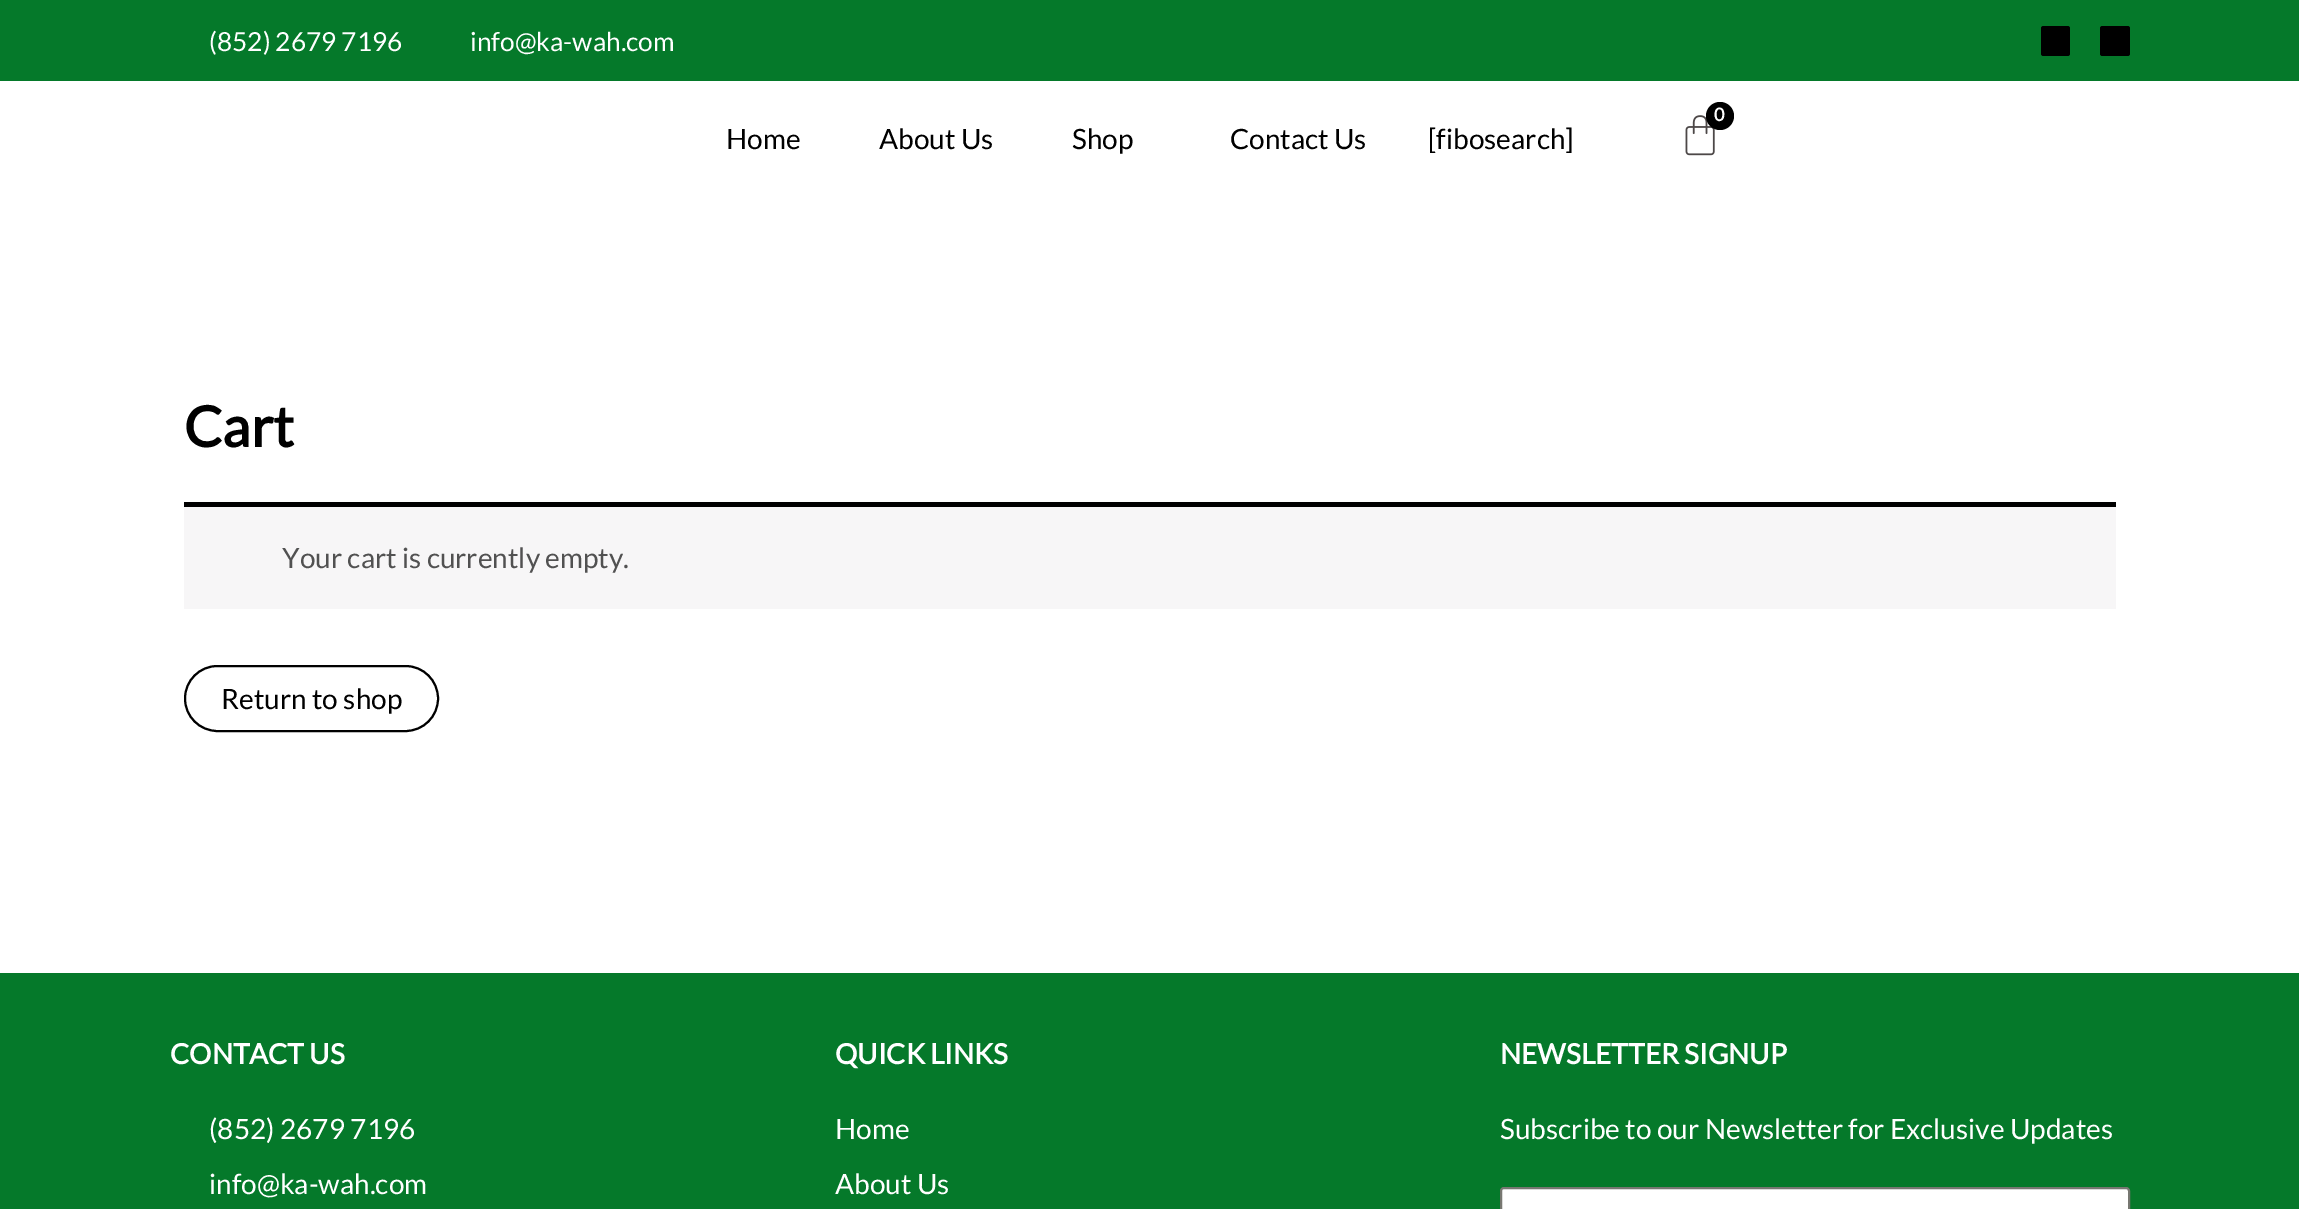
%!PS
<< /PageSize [2299 1209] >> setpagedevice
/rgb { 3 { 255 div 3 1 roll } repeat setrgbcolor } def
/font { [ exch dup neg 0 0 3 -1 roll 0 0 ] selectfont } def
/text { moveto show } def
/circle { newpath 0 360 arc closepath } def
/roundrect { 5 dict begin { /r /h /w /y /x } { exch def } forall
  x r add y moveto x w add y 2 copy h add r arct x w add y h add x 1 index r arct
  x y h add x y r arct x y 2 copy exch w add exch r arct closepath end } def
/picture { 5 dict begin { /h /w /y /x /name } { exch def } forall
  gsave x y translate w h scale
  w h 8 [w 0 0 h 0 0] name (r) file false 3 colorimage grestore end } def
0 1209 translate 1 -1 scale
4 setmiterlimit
255 255 255 rgb
0 0 2299 1209 rectfill
5 121 42 rgb
0 0 2299 81 rectfill
0 0 0 rgb
2041 26 29 30 2.5 roundrect fill
2100 26 30 30 2.5 roundrect fill
(img_01.rgb) 1685 115 30 41 picture
1720 116 14 circle fill
247 246 247 rgb
184 507 1932 102 rectfill
0 0 0 rgb
184 502 1932 5 rectfill
2 setlinewidth
185 666 253 65 32.5 roundrect stroke
5 121 42 rgb
0 973 2299 236 rectfill
255 255 255 rgb
1501 1188 628 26 3 roundrect gsave fill grestore
119 119 113 rgb
stroke
/Lato-Regular 26.25 font
255 255 255 rgb
(\(852\) 2679 7196) 209 51 text
(info@ka-wah.com) 470 51 text
/Lato-Regular 28 font
0 0 0 rgb
(Home) 726 149 text
(About Us) 879 149 text
(Shop) 1072 149 text
(Contact Us) 1230 149 text
/Lato-Bold 18 font
255 255 255 rgb
(0) 1714 121 text
/Lato-Regular 28 font
0 0 0 rgb
([fibosearch]) 1428 149 text
/Lato-Bold 56 font
(Cart) 184 447 text
/Lato-Regular 28 font
81 81 81 rgb
(Your cart is currently empty.) 282 568 text
0 0 0 rgb
(Return to shop) 221 709 text
/Lato-Bold 28 font
255 255 255 rgb
(CONTACT US) 170 1064 text
/Lato-Regular 28 font
(\(852\) 2679 7196) 209 1139 text
(info@ka-wah.com) 209 1194 text
/Lato-Bold 28 font
(QUICK LINKS) 835 1064 text
/Lato-Regular 28 font
(Home) 835 1139 text
(About Us) 835 1194 text
/Lato-Bold 28 font
(NEWSLETTER SIGNUP) 1500 1064 text
/Lato-Regular 28 font
(Subscribe to our Newsletter for Exclusive Updates) 1500 1139 text
showpage
